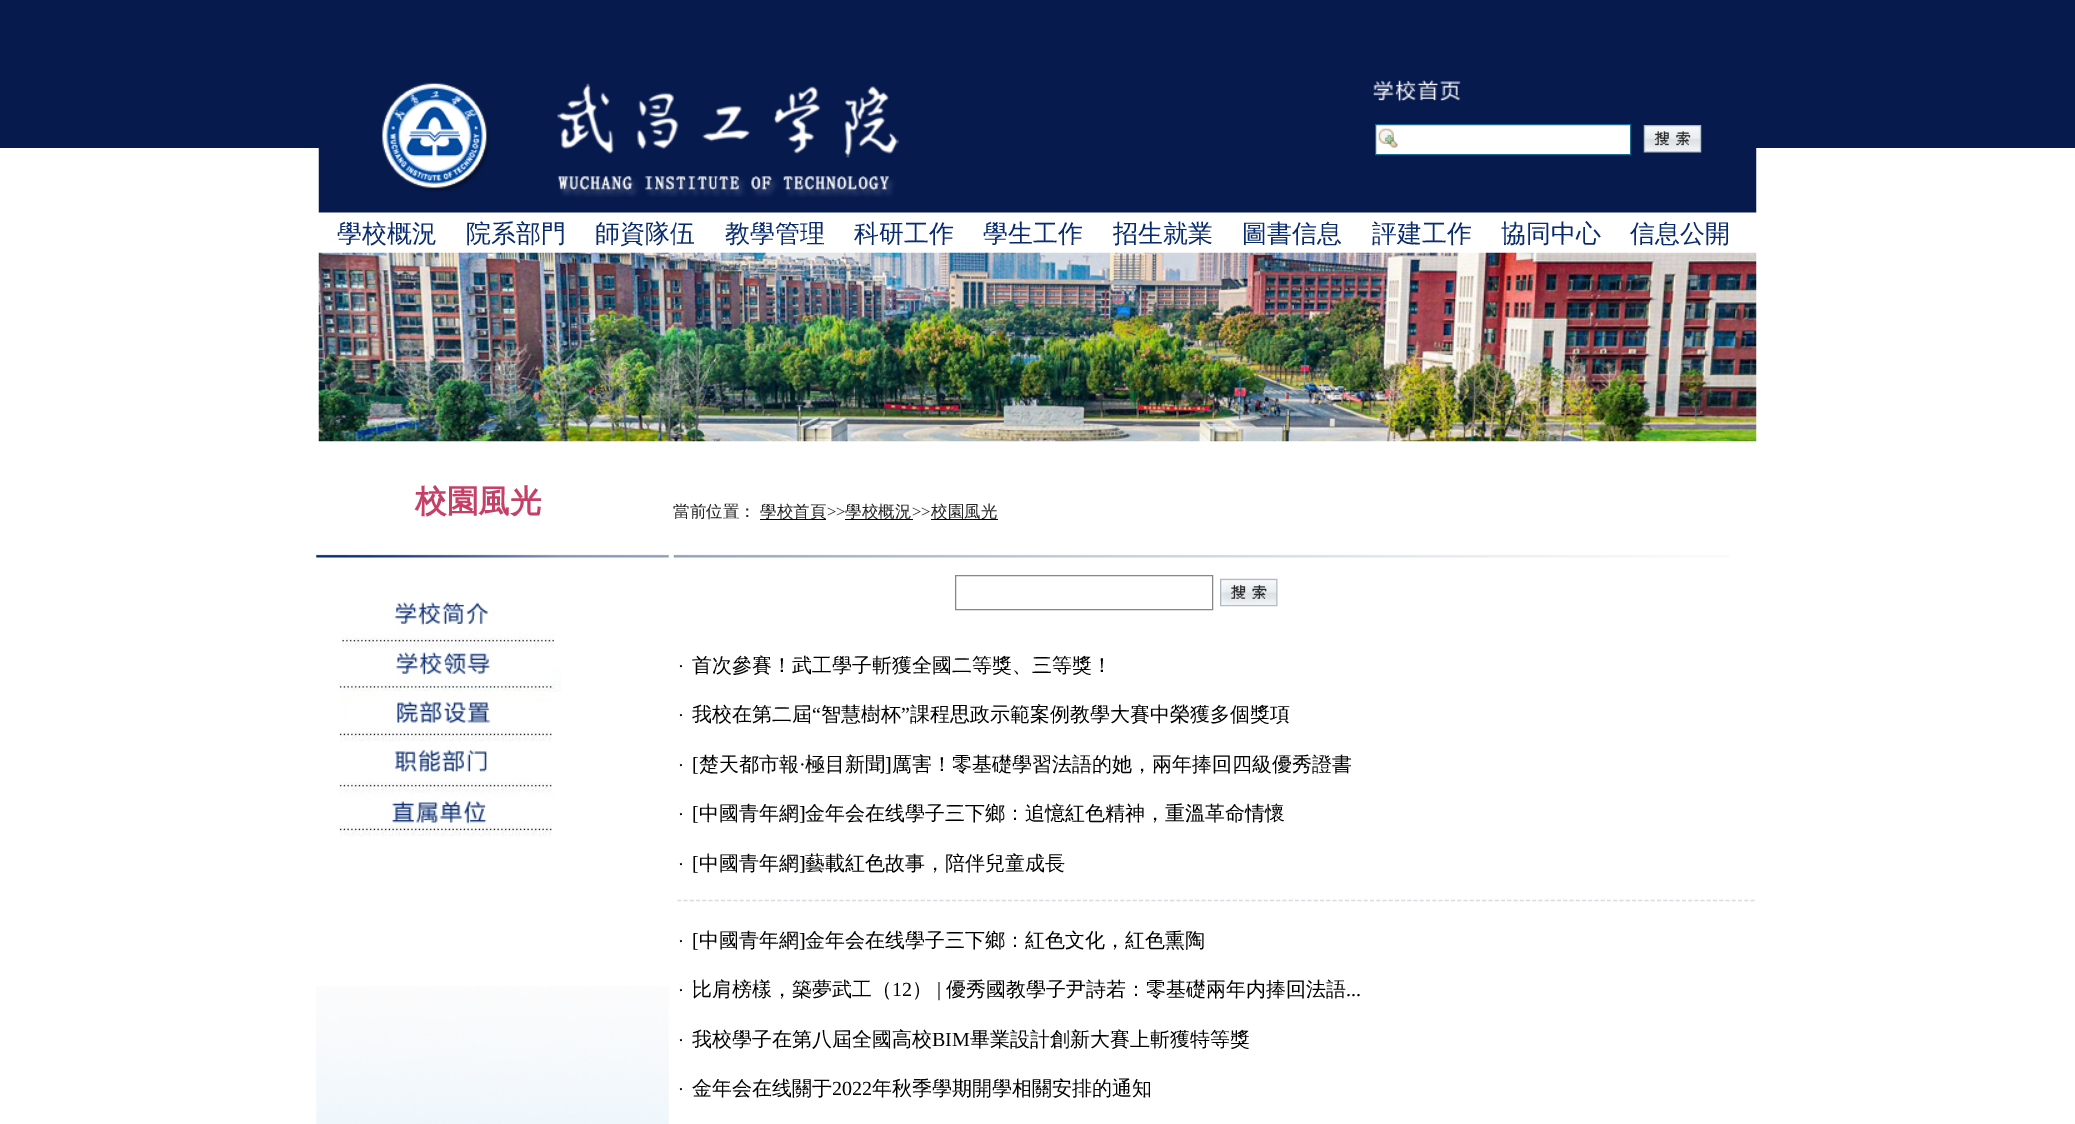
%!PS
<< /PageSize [2075 1124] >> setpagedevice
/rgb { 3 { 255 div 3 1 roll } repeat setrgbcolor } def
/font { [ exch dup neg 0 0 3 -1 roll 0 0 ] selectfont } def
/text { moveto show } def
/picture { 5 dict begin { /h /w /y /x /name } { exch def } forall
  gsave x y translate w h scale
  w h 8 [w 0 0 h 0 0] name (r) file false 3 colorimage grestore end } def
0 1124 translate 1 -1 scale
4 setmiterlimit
255 255 255 rgb
0 0 2075 1124 rectfill
6 26 78 rgb
0 0 2075 148 rectfill
(img_06.rgb) 318 252 1439 190 picture
(img_01.rgb) 318 148 1439 105 picture
(img_02.rgb) 381 82 518 115 picture
(img_03.rgb) 1373 80 88 22 picture
255 255 255 rgb
1376 125 254 29 rectfill
(img_04.rgb) 1378 128 20 20 picture
29 105 141 rgb
1375.5 124.5 255 30 rectstroke
(img_05.rgb) 1643 125 59 28 picture
0 0 0 rgb
760 519 66 1 rectfill
845 519 68 1 rectfill
931 519 67 1 rectfill
(img_07.rgb) 316 554 353 4 picture
(img_08.rgb) 673 554 1056 4 picture
(img_09.rgb) 316 986 353 138 picture
(img_10.rgb) 339 602 222 235 picture
135 135 135 rgb
955.5 575.5 257 34 rectstroke
(img_11.rgb) 1220 578 58 29 picture
219 219 232 rgb
1.2 setlinewidth
[3.75 2.49] 0 setdash
677.5 900.5 moveto 1077.5 0 rlineto stroke
/WenQuanYiZenHei-Medium 25 font
8 43 111 rgb
(學校概況) 337 242 text
(院系部門) 466 242 text
(師資隊伍) 595 242 text
(教學管理) 725 242 text
(科研工作) 854 242 text
(學生工作) 983 242 text
(招生就業) 1113 242 text
(圖書信息) 1242 242 text
(評建工作) 1372 242 text
(協同中心) 1501 242 text
(信息公開) 1630 242 text
/WenQuanYiZenHei-Bold 31.5 font
196 64 102 rgb
(校園風光) 415 512 text
/WenQuanYiZenHei-Medium 16.5 font
34 34 34 rgb
(當前位置：) 673 517 text
(學校首頁) 760 517 text
/LiberationSerif-Regular 16.5 font
(>>) 827 517 text
/WenQuanYiZenHei-Medium 16.5 font
(學校概況) 845 517 text
/LiberationSerif-Regular 16.5 font
(>>) 912 517 text
/WenQuanYiZenHei-Medium 16.5 font
(校園風光) 931 517 text
/LiberationSerif-Regular 18 font
0 0 0 rgb
(·) 678 672 text
/WenQuanYiZenHei-Medium 20 font
(首次參賽！武工學子斬獲全國二等獎、三等獎！) 692 672 text
(我校在第二屆) 692 721 text
/LiberationSerif-Regular 20 font
(“) 812 721 text
/WenQuanYiZenHei-Medium 20 font
(智慧樹杯) 821 721 text
/LiberationSerif-Regular 20 font
(”) 901 721 text
/WenQuanYiZenHei-Medium 20 font
(課程思政示範案例教學大賽中榮獲多個獎項) 910 721 text
/LiberationSerif-Regular 18 font
(·) 678 721 text
(·) 678 771 text
/LiberationSerif-Regular 20 font
([) 692 771 text
/WenQuanYiZenHei-Medium 20 font
(楚天都市報) 699 771 text
/LiberationSerif-Regular 20 font
(·) 799 771 text
/WenQuanYiZenHei-Medium 20 font
(極目新聞) 805 771 text
/LiberationSerif-Regular 20 font
(]) 885 771 text
/WenQuanYiZenHei-Medium 20 font
(厲害！零基礎學習法語的她，兩年捧回四級優秀證書) 892 771 text
/LiberationSerif-Regular 18 font
(·) 678 820 text
/LiberationSerif-Regular 20 font
([) 692 820 text
/WenQuanYiZenHei-Medium 20 font
(中國青年網) 699 820 text
/LiberationSerif-Regular 20 font
(]) 799 820 text
/WenQuanYiZenHei-Medium 20 font
(金年会在线學子三下鄉：追憶紅色精神，重溫革命情懷) 805 820 text
/LiberationSerif-Regular 18 font
(·) 678 870 text
/LiberationSerif-Regular 20 font
([) 692 870 text
/WenQuanYiZenHei-Medium 20 font
(中國青年網) 699 870 text
/LiberationSerif-Regular 20 font
(]) 799 870 text
/WenQuanYiZenHei-Medium 20 font
(藝載紅色故事，陪伴兒童成長) 805 870 text
/LiberationSerif-Regular 18 font
(·) 678 947 text
/LiberationSerif-Regular 20 font
([) 692 947 text
/WenQuanYiZenHei-Medium 20 font
(中國青年網) 699 947 text
/LiberationSerif-Regular 20 font
(]) 799 947 text
/WenQuanYiZenHei-Medium 20 font
(金年会在线學子三下鄉：紅色文化，紅色熏陶) 805 947 text
/LiberationSerif-Regular 18 font
(·) 678 996 text
/WenQuanYiZenHei-Medium 20 font
(比肩榜樣，築夢武工（) 692 996 text
/LiberationSerif-Regular 20 font
(12) 892 996 text
/WenQuanYiZenHei-Medium 20 font
(）) 912 996 text
/LiberationSerif-Regular 20 font
(|) 937 996 text
/WenQuanYiZenHei-Medium 20 font
(優秀國教學子尹詩若：零基礎兩年内捧回法語) 946 996 text
/LiberationSerif-Regular 20 font
(...) 1346 996 text
/LiberationSerif-Regular 18 font
(·) 678 1046 text
/WenQuanYiZenHei-Medium 20 font
(我校學子在第八屆全國高校) 692 1046 text
/LiberationSerif-Regular 20 font
(BIM) 932 1046 text
/WenQuanYiZenHei-Medium 20 font
(畢業設計創新大賽上斬獲特等獎) 970 1046 text
/LiberationSerif-Regular 18 font
(·) 678 1095 text
/WenQuanYiZenHei-Medium 20 font
(金年会在线關于) 692 1095 text
/LiberationSerif-Regular 20 font
(2022) 832 1095 text
/WenQuanYiZenHei-Medium 20 font
(年秋季學期開學相關安排的通知) 872 1095 text
showpage
